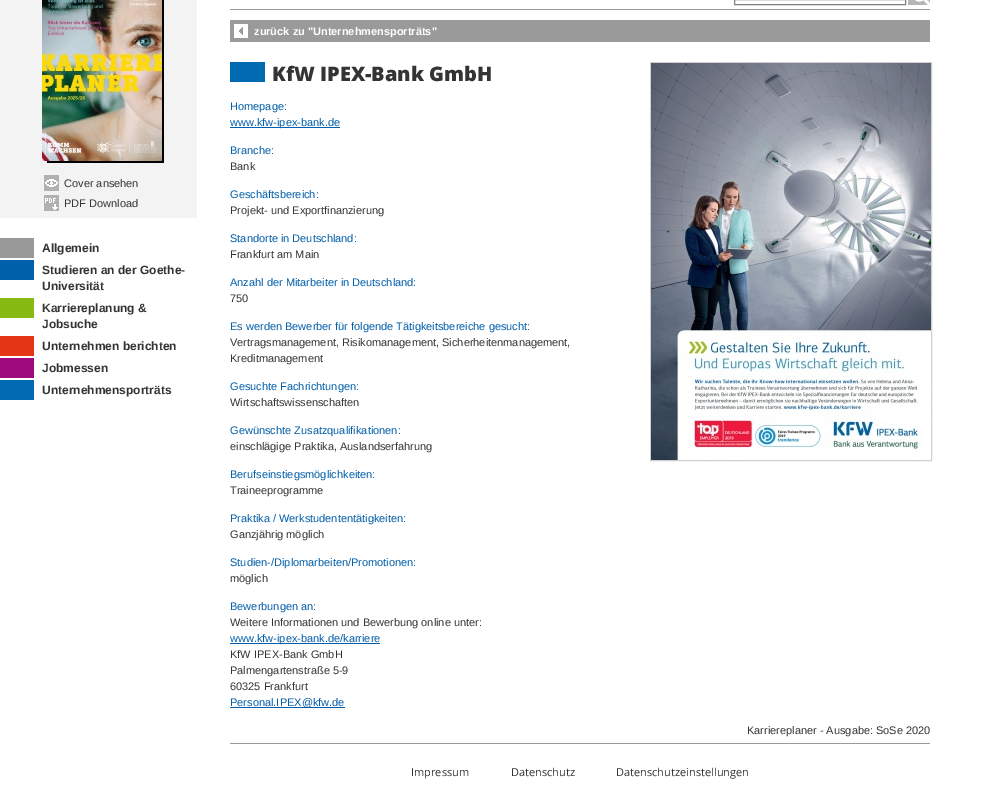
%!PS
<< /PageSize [1001 807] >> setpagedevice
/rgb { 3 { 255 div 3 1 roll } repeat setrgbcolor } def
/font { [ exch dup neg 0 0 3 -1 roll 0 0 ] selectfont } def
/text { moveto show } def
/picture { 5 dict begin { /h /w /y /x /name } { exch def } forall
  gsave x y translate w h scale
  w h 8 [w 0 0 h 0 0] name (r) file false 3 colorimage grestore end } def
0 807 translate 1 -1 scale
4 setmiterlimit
255 255 255 rgb
0 0 1001 807 rectfill
243 243 243 rgb
0 0 197 218 rectfill
(img_01.rgb) 42 0 120 161 picture
0 0 0 rgb
162 0 2 161 rectfill
47 161 117 2 rectfill
(img_02.rgb) 44 175 15 16 picture
(img_03.rgb) 44 195 15 16 picture
153 153 153 rgb
0 238 34 20 rectfill
0 96 169 rgb
0 260 34 20 rectfill
136 186 20 rgb
0 298 34 20 rectfill
229 53 23 rgb
0 336 34 20 rectfill
156 10 125 rgb
0 358 34 20 rectfill
0 106 179 rgb
0 380 34 20 rectfill
128 128 128 rgb
734.5 -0.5 171 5 rectstroke
(img_04.rgb) 908 0 22 5 picture
154 154 154 rgb
230 9 700 1 rectfill
230 20 700 22 rectfill
(img_05.rgb) 234 24 14 14 picture
0 106 179 rgb
230 62 35 20 rectfill
208 208 208 rgb
650.5 62.5 281 398 rectstroke
(img_06.rgb) 651 63 280 397 picture
0 94 170 rgb
230 127 110 1 rectfill
230 643 150 1 rectfill
230 707 115 1 rectfill
154 154 154 rgb
230 743 700 1 rectfill
/LiberationSans-Regular 11 font
52 52 52 rgb
(Cover ansehen) 64 187 text
(PDF Download) 64 207 text
/LiberationSans-Bold 12 font
(Allgemein) 42 252 text
(Studieren an der Goethe-) 42 274 text
(Universität) 42 290 text
(Karriereplanung &) 42 312 text
(Jobsuche) 42 328 text
(Unternehmen berichten) 42 350 text
(Jobmessen) 42 372 text
(Unternehmensporträts) 42 394 text
/LiberationSans-Bold 11 font
255 255 255 rgb
(zurück zu "Unternehmensporträts") 254 35 text
/OpenSans-ExtraBold 20 font
52 52 52 rgb
(KfW IPEX-Bank GmbH) 272 81 text
/LiberationSans-Regular 11 font
0 94 170 rgb
(Homepage:) 230 110 text
(www.kfw-ipex-bank.de) 230 126 text
(Branche:) 230 154 text
52 52 52 rgb
(Bank) 230 170 text
0 94 170 rgb
(Geschäftsbereich:) 230 198 text
52 52 52 rgb
(Projekt- und Exportfinanzierung) 230 214 text
0 94 170 rgb
(Standorte in Deutschland:) 230 242 text
52 52 52 rgb
(Frankfurt am Main) 230 258 text
0 94 170 rgb
(Anzahl der Mitarbeiter in Deutschland:) 230 286 text
52 52 52 rgb
(750) 230 302 text
0 94 170 rgb
(Es werden Bewerber für folgende Tätigkeitsbereiche gesucht:) 230 330 text
52 52 52 rgb
(Vertragsmanagement, Risikomanagement, Sicherheitenmanagement,) 230 346 text
(Kreditmanagement) 230 362 text
0 94 170 rgb
(Gesuchte Fachrichtungen:) 230 390 text
52 52 52 rgb
(Wirtschaftswissenschaften) 230 406 text
0 94 170 rgb
(Gewünschte Zusatzqualifikationen:) 230 434 text
52 52 52 rgb
(einschlägige Praktika, Auslandserfahrung) 230 450 text
0 94 170 rgb
(Berufseinstiegsmöglichkeiten:) 230 478 text
52 52 52 rgb
(Traineeprogramme) 230 494 text
0 94 170 rgb
(Praktika / Werkstudententätigkeiten:) 230 522 text
52 52 52 rgb
(Ganzjährig möglich) 230 538 text
0 94 170 rgb
(Studien-/Diplomarbeiten/Promotionen:) 230 566 text
52 52 52 rgb
(möglich) 230 582 text
0 94 170 rgb
(Bewerbungen an:) 230 610 text
52 52 52 rgb
(Weitere Informationen und Bewerbung online unter:) 230 626 text
0 94 170 rgb
(www.kfw-ipex-bank.de/karriere) 230 642 text
52 52 52 rgb
(KfW IPEX-Bank GmbH) 230 658 text
(Palmengartenstraße 5-9) 230 674 text
(60325 Frankfurt) 230 690 text
0 94 170 rgb
(Personal.IPEX@kfw.de) 230 706 text
52 52 52 rgb
(Karriereplaner - Ausgabe: SoSe 2020) 747 734 text
/OpenSans-Regular 11 font
(Impressum) 411 776 text
(Datenschutz) 511 776 text
(Datenschutzeinstellungen) 616 776 text
showpage
